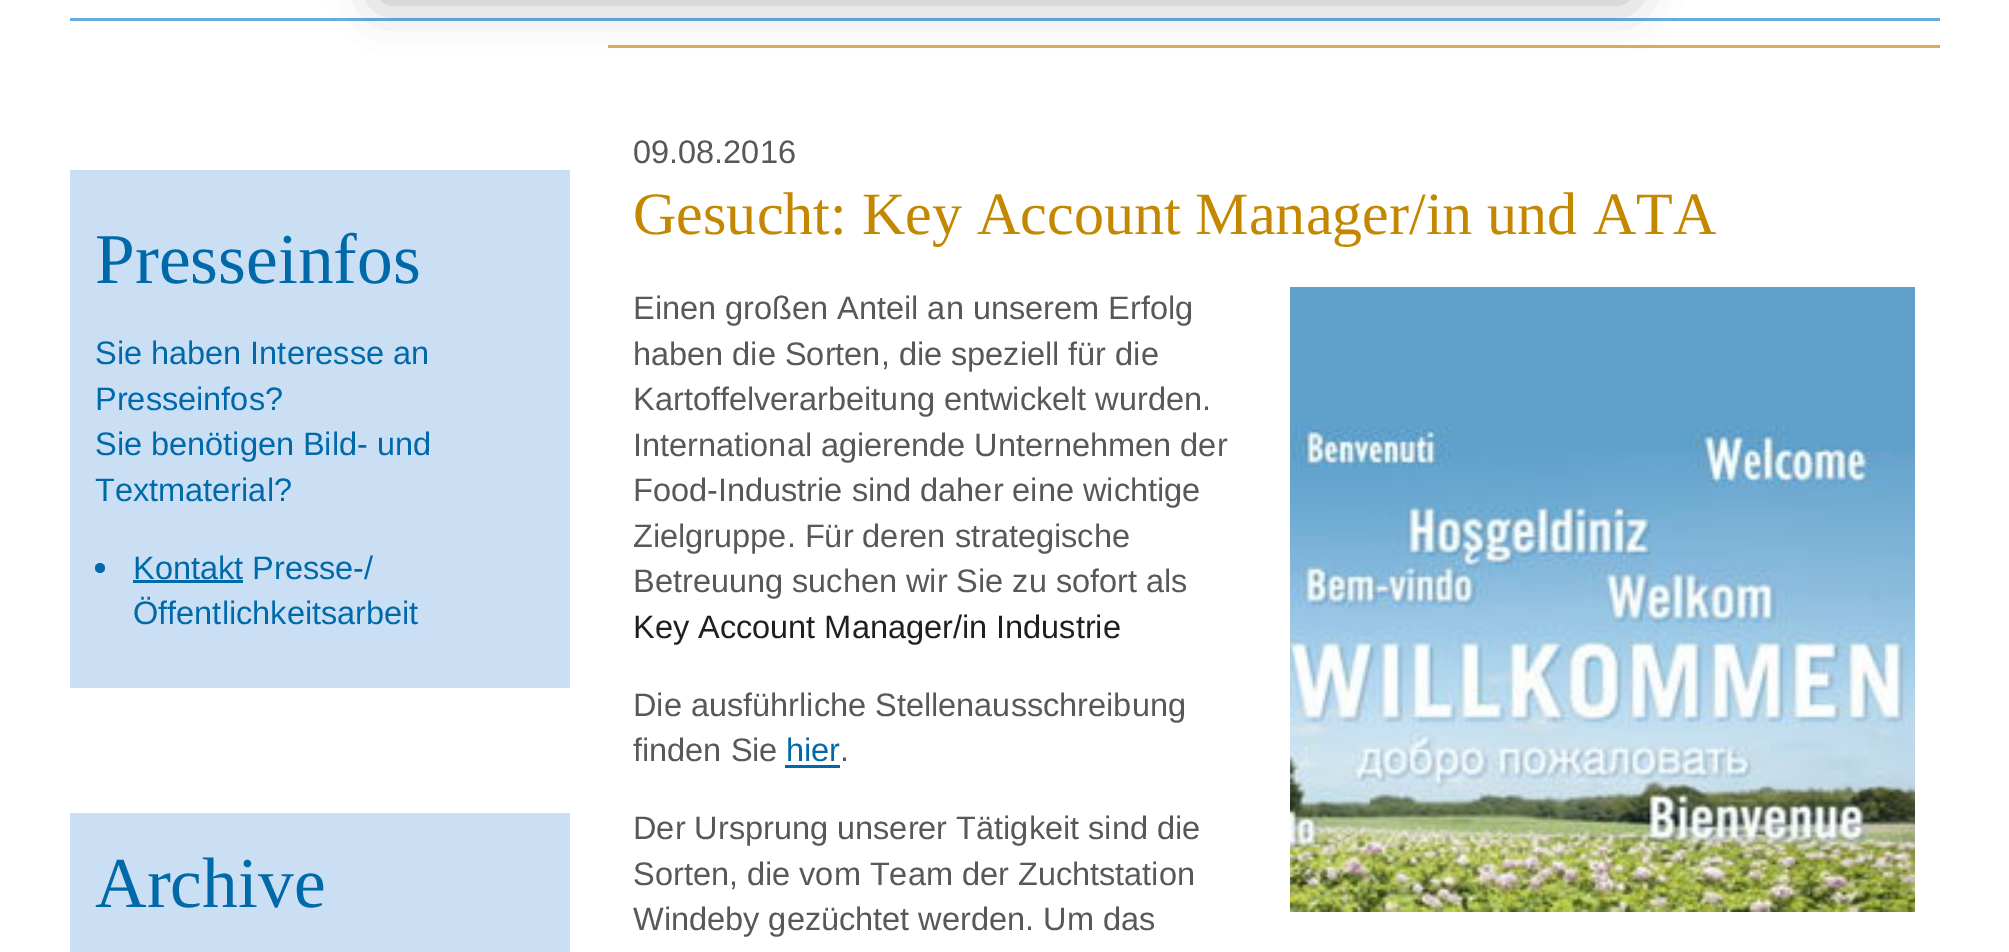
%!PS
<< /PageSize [2009 952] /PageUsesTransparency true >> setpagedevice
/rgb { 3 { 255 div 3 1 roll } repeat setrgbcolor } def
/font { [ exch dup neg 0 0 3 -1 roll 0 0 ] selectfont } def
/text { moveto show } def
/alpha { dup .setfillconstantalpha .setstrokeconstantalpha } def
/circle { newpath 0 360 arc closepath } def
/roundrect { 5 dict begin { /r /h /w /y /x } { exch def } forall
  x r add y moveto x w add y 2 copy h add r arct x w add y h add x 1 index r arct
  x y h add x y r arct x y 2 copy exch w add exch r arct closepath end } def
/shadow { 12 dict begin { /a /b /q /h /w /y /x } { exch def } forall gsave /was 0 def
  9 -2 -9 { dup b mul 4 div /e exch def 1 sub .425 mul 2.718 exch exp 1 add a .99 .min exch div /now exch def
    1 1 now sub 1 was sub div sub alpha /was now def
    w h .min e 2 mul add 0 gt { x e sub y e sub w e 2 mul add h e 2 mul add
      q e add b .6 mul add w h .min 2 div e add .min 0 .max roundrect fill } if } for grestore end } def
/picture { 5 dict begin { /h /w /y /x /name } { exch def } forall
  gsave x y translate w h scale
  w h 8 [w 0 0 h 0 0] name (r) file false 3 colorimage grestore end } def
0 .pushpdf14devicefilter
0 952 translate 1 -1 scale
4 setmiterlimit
255 255 255 rgb
0 0 2009 952 rectfill
103 172 223 rgb
70 18 1870 3 rectfill
218 174 88 rgb
608 45 1332 3 rectfill
0 0 0 rgb
380 -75 1250 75 0 25 0.3 shadow
203 223 244 rgb
70 170 500 518 rectfill
0 105 169 rgb
100 568 5 circle fill
133 580 110 3 rectfill
203 223 244 rgb
70 813 500 139 rectfill
(img_01.rgb) 1290 287 625 625 picture
0 105 169 rgb
785 765 55 3 rectfill
/LiberationSerif-Regular 71.5 font
(Presseinfos) 95 283 text
/LiberationSans-Regular 32.5 font
(Sie haben Interesse an) 95 364 text
(Presseinfos?) 95 410 text
(Sie benötigen Bild- und) 95 455 text
(Textmaterial?) 95 501 text
(Kontakt Presse-/) 133 579 text
(Öffentlichkeitsarbeit) 133 624 text
/LiberationSerif-Regular 71.5 font
(Archive) 95 907 text
/LiberationSans-Regular 32.5 font
88 88 88 rgb
(09.08.2016) 633 163 text
/LiberationSerif-Regular 60.1 font
195 135 0 rgb
(Gesucht: Key Account Manager/in und ATA) 633 234 text
/LiberationSans-Regular 32.5 font
88 88 88 rgb
(Einen großen Anteil an unserem Erfolg) 633 319 text
(haben die Sorten, die speziell für die) 633 365 text
(Kartoffelverarbeitung entwickelt wurden.) 633 410 text
(International agierende Unternehmen der) 633 456 text
(Food-Industrie sind daher eine wichtige) 633 501 text
(Zielgruppe. Für deren strategische) 633 547 text
(Betreuung suchen wir Sie zu sofort als) 633 592 text
34 30 31 rgb
(Key Account Manager/in Industrie) 633 638 text
88 88 88 rgb
(Die ausführliche Stellenausschreibung) 633 716 text
(finden Sie) 633 761 text
0 105 169 rgb
(hier) 786 761 text
88 88 88 rgb
(.) 840 761 text
(Der Ursprung unserer Tätigkeit sind die) 633 839 text
(Sorten, die vom Team der Zuchtstation) 633 885 text
(Windeby gezüchtet werden. Um das) 633 930 text
.poppdf14devicefilter showpage
